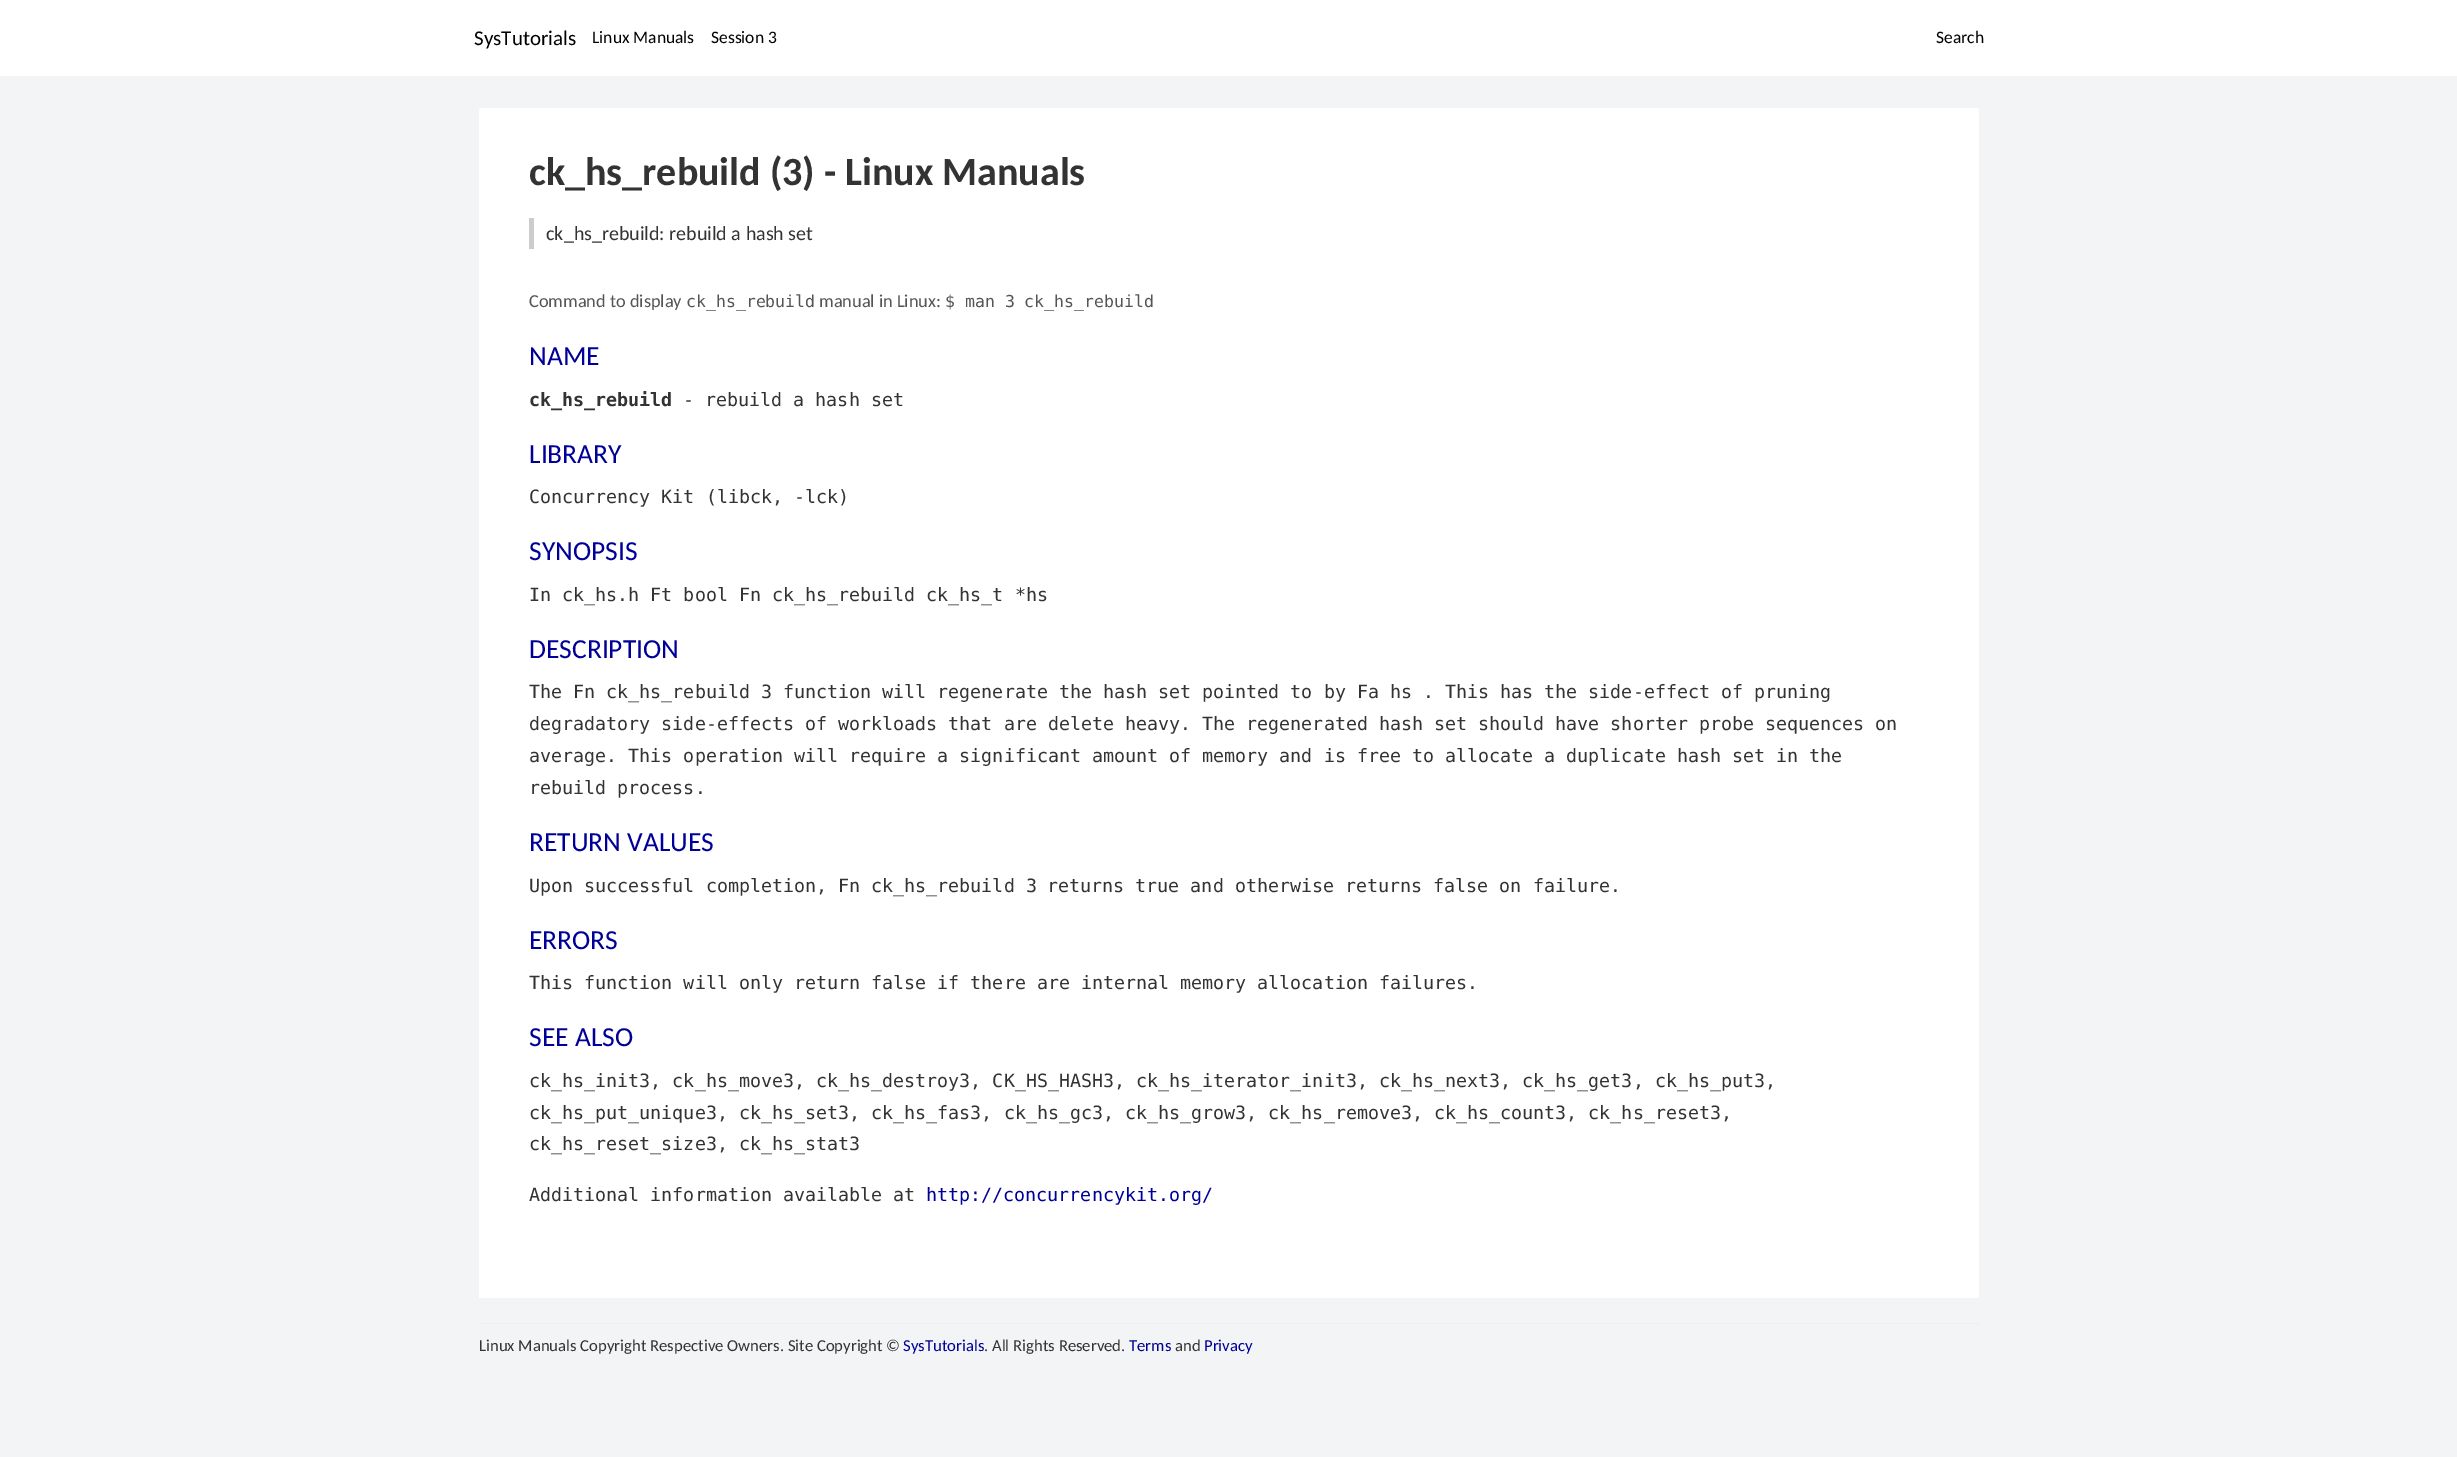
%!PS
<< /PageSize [2457 1457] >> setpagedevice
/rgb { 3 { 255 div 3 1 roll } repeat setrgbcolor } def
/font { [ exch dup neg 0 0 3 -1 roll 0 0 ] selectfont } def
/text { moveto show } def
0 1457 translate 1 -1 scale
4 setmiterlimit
243 244 246 rgb
0 0 2457 1457 rectfill
255 255 255 rgb
0 0 2457 76 rectfill
481.5 108 moveto 1495 0 rlineto 1.5 0 2.5 1 2.5 2.5 rcurveto 0 1187.5 rlineto -1500 0 rlineto 0 -1187.5 rlineto 0 -1.5 1 -2.5 2.5 -2.5 rcurveto closepath fill
204 204 204 rgb
529 218 5 31 rectfill
238 238 238 rgb
479 1323 1500 1 rectfill
/Carlito-Regular 21 font
0 0 0 rgb
(SysTutorials) 474 45 text
/Carlito-Regular 17.5 font
(Linux Manuals) 592 43 text
(Session 3) 711 43 text
(Search) 1936 43 text
/Carlito-Bold 40 font
51 51 51 rgb
(ck_hs_rebuild \(3\) - Linux Manuals) 529 185 text
/Carlito-Regular 20 font
(ck_hs_rebuild: rebuild a hash set) 546 240 text
/Carlito-Regular 18.33 font
85 85 85 rgb
(Command to display) 529 307 text
/DejaVuSansMono-Regular 16.5 font
(ck_hs_rebuild) 686 307 text
/Carlito-Regular 18.33 font
(manual in Linux:) 819 307 text
/DejaVuSansMono-Regular 16.5 font
($ man 3 ck_hs_rebuild) 945 307 text
/Carlito-Regular 27.5 font
0 0 153 rgb
(NAME) 529 365 text
/DejaVuSansMono-Bold 18.33 font
51 51 51 rgb
(ck_hs_rebuild) 529 406 text
/DejaVuSansMono-Regular 18.33 font
(- rebuild a hash set) 683 406 text
/Carlito-Regular 27.5 font
0 0 153 rgb
(LIBRARY) 529 463 text
/DejaVuSansMono-Regular 18.33 font
51 51 51 rgb
(Concurrency Kit \(libck, -lck\)) 529 503 text
/Carlito-Regular 27.5 font
0 0 153 rgb
(SYNOPSIS) 529 560 text
/DejaVuSansMono-Regular 18.33 font
51 51 51 rgb
(In ck_hs.h Ft bool Fn ck_hs_rebuild ck_hs_t *hs) 529 601 text
/Carlito-Regular 27.5 font
0 0 153 rgb
(DESCRIPTION) 529 658 text
/DejaVuSansMono-Regular 18.33 font
51 51 51 rgb
(The Fn ck_hs_rebuild 3 function will regenerate the hash set pointed to by Fa hs . This has the side-effect of pruning) 529 698 text
(degradatory side-effects of workloads that are delete heavy. The regenerated hash set should have shorter probe sequences on) 529 730 text
(average. This operation will require a significant amount of memory and is free to allocate a duplicate hash set in the) 529 762 text
(rebuild process.) 529 794 text
/Carlito-Regular 27.5 font
0 0 153 rgb
(RETURN VALUES) 529 851 text
/DejaVuSansMono-Regular 18.33 font
51 51 51 rgb
(Upon successful completion, Fn ck_hs_rebuild 3) 529 892 text
(returns true and otherwise returns false on failure.) 1047 892 text
/Carlito-Regular 27.5 font
0 0 153 rgb
(ERRORS) 529 949 text
/DejaVuSansMono-Regular 18.33 font
51 51 51 rgb
(This function will only return false if there are internal memory allocation failures.) 529 989 text
/Carlito-Regular 27.5 font
0 0 153 rgb
(SEE ALSO) 529 1046 text
/DejaVuSansMono-Regular 18.33 font
51 51 51 rgb
(ck_hs_init3, ck_hs_move3, ck_hs_destroy3, CK_HS_HASH3, ck_hs_iterator_init3, ck_hs_next3, ck_hs_get3, ck_hs_put3,) 529 1087 text
(ck_hs_put_unique3, ck_hs_set3, ck_hs_fas3, ck_hs_gc3, ck_hs_grow3, ck_hs_remove3, ck_hs_count3, ck_hs_reset3,) 529 1119 text
(ck_hs_reset_size3, ck_hs_stat3) 529 1150 text
(Additional information available at) 529 1201 text
0 0 153 rgb
(http://concurrencykit.org/) 926 1201 text
/Carlito-Regular 16.7 font
51 51 51 rgb
(Linux Manuals Copyright Respective Owners. Site Copyright ©) 479 1351 text
0 0 153 rgb
(SysTutorials) 903 1351 text
51 51 51 rgb
(. All Rights Reserved.) 984 1351 text
0 0 153 rgb
(Terms) 1129 1351 text
51 51 51 rgb
(and) 1175 1351 text
0 0 153 rgb
(Privacy) 1204 1351 text
showpage
